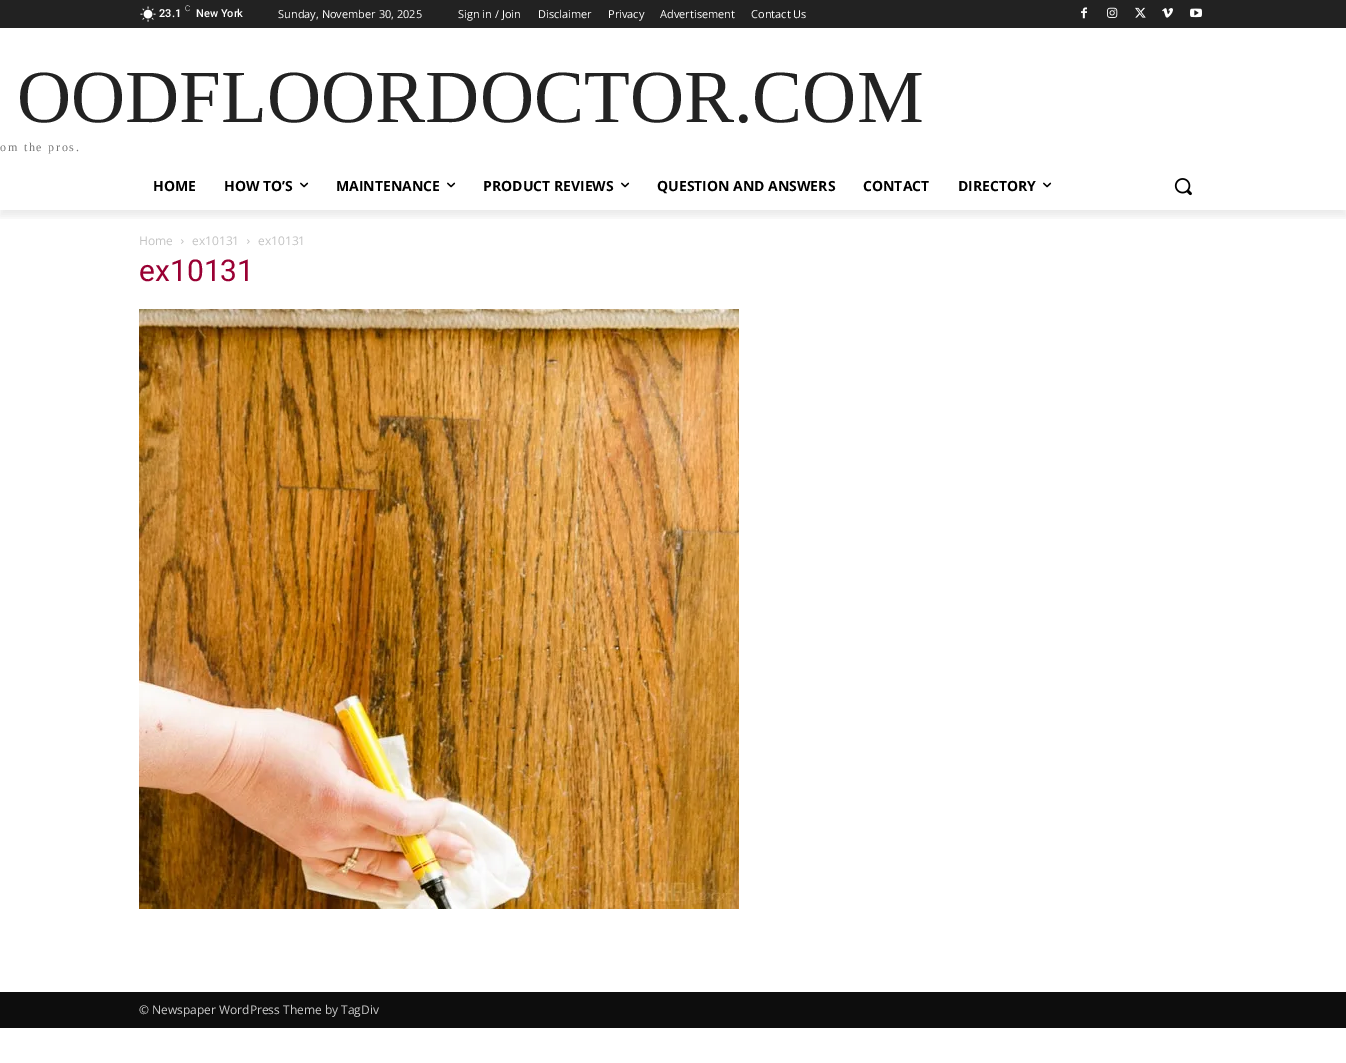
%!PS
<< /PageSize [1346 1063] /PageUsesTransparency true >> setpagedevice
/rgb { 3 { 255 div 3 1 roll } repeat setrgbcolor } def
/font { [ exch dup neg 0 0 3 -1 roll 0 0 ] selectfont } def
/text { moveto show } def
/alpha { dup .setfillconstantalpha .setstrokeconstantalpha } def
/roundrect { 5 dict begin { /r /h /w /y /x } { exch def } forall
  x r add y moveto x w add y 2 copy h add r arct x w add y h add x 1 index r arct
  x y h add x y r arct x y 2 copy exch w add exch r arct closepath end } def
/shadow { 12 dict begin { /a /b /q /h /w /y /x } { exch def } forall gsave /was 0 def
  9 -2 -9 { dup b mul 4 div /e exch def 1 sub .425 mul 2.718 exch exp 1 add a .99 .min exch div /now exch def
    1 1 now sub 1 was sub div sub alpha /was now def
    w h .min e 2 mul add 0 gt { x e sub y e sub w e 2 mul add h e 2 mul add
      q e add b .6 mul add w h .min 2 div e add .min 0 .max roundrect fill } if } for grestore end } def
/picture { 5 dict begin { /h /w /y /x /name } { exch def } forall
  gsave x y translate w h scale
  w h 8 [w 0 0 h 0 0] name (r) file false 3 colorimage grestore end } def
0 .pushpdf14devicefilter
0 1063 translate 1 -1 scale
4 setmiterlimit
255 255 255 rgb
0 0 1346 1063 rectfill
34 34 34 rgb
0 0 1346 28 rectfill
(img_01.rgb) 140 6 16 16 picture
(img_02.rgb) 1081 7 6 12 picture
(img_03.rgb) 1107 7 11 11 picture
(img_04.rgb) 1135 7 11 11 picture
(img_05.rgb) 1162 8 11 10 picture
(img_06.rgb) 1190 8 12 10 picture
gsave
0 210 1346 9 rectclip
0 0 0 rgb
0 6 1346 210 0 4 0.08 shadow
grestore
(img_07.rgb) 300 182 9 6 picture
(img_07.rgb) 447 182 9 6 picture
(img_07.rgb) 621 182 9 6 picture
(img_07.rgb) 1043 182 9 6 picture
(img_08.rgb) 1174 178 18 18 picture
(img_09.rgb) 181 239 3 5 picture
(img_09.rgb) 247 239 3 5 picture
(img_10.rgb) 139 309 600 600 picture
13 13 13 rgb
0 992 1346 36 rectfill
/Roboto-SemiBold 11 font
255 255 255 rgb
(23.1) 159 17 text
/Roboto-Light 8 font
(C) 185 11 text
/Roboto-Medium 11 font
(New York) 196 17 text
/OpenSans-Regular 11 font
(Sunday, November 30, 2025) 278 18 text
(Sign in / Join) 458 18 text
(Disclaimer) 538 18 text
(Privacy) 608 18 text
(Advertisement) 660 18 text
(Contact Us) 751 18 text
/LiberationSerif-Regular 75 font
34 34 34 rgb
(OODFLOORDOCTOR.COM) 17 122 text
/LiberationSerif-Regular 12 font
118 118 118 rgb
0 151 moveto 1.75 0 (om the pros.) ashow
/OpenSans-Bold 14 font
0 0 0 rgb
(HOME) 153 191 text
(HOW TO’S) 224 191 text
(MAINTENANCE) 336 191 text
(PRODUCT REVIEWS) 483 191 text
(QUESTION AND ANSWERS) 657 191 text
(CONTACT) 863 191 text
(DIRECTORY) 958 191 text
/OpenSans-Regular 12 font
195 195 195 rgb
(Home) 139 245 text
(ex10131) 192 245 text
(ex10131) 258 245 text
/Roboto-Regular 30 font
153 0 51 rgb
(ex10131) 139 281 text
/OpenSans-Regular 12 font
204 204 204 rgb
(© Newspaper WordPress Theme by TagDiv) 139 1014 text
.poppdf14devicefilter showpage
